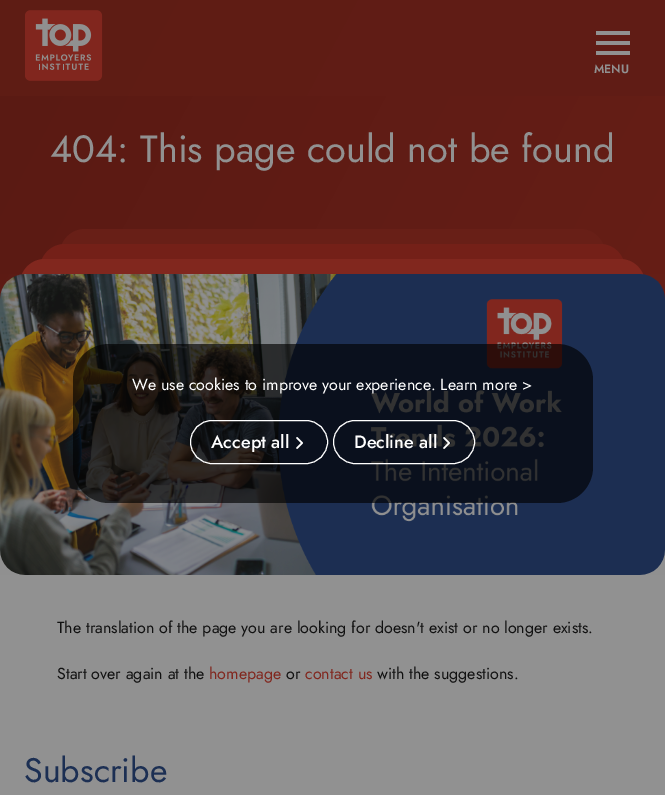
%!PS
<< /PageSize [665 795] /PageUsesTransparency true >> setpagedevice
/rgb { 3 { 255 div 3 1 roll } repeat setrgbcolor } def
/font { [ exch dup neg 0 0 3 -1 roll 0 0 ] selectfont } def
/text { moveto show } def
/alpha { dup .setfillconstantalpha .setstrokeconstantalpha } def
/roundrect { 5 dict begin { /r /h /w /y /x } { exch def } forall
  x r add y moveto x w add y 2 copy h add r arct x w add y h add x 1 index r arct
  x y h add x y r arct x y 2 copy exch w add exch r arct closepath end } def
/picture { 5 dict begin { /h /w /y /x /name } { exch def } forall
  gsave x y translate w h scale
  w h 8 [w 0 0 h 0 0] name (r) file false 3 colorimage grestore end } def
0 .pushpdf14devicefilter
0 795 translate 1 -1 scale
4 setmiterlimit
145 145 145 rgb
0 0 665 795 rectfill
gsave 0 96 moveto 665 0 rlineto 0 203 rlineto -665 0 rlineto closepath clip newpath
<< /ShadingType 2 /ColorSpace /DeviceRGB /Coords [-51 78 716 485] /Extend [true true] /Function << /FunctionType 2 /Domain [0 1] /C0 [0.349 0.102 0.075] /C1 [0.408 0.122 0.09] /N 1 >> >> shfill grestore
gsave 0 0 moveto 665 0 rlineto 0 96 rlineto -665 0 rlineto closepath clip newpath
<< /ShadingType 2 /ColorSpace /DeviceRGB /Coords [-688 -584 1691 680] /Extend [true true] /Function << /FunctionType 2 /Domain [0 1] /C0 [0.349 0.102 0.075] /C1 [0.408 0.122 0.09] /N 1 >> >> shfill grestore
(img_01.rgb) 25 10 78 71 picture
596 31 34 4 rectfill
596 41 34 4 rectfill
596 51 34 4 rectfill
104 31 23 rgb
60 229 545 301 25 roundrect fill
116 32 24 rgb
40 244 585 301 25 roundrect fill
129 39 30 rgb
20 259 625 301 25 roundrect fill
(img_02.rgb) 0 274 665 301 picture
0.65 alpha
0 0 0 rgb
73 344 520 159 36 roundrect fill
1 alpha
255 255 255 rgb
190.5 420.5 137 43 21.5 roundrect stroke
(img_03.rgb) 296 437 7 12 picture
333.5 420.5 141 43 21.5 roundrect stroke
(img_04.rgb) 443 437 7 12 picture
/Jost-SemiBold 12 font
145 145 145 rgb
(MENU) 594 73 text
/Jost-Regular 38 font
(404: This page could not be found) 50 162 text
/Jost-Regular 16 font
255 255 255 rgb
(We use cookies to improve your experience. Learn more >) 132 390 text
/Jost-Medium 18 font
(Accept all) 211 448 text
(Decline all) 354 448 text
/Jost-Regular 16 font
17 17 17 rgb
(The translation of the page you are looking for doesn't exist or no longer exists.) 57 633 text
(Start over again at the) 57 679 text
129 39 30 rgb
(homepage) 209 679 text
17 17 17 rgb
(or) 286 679 text
129 39 30 rgb
(contact us) 305 679 text
17 17 17 rgb
(with the suggestions.) 377 679 text
/Jost-Regular 34 font
28 47 83 rgb
(Subscribe) 24 782 text
.poppdf14devicefilter showpage
